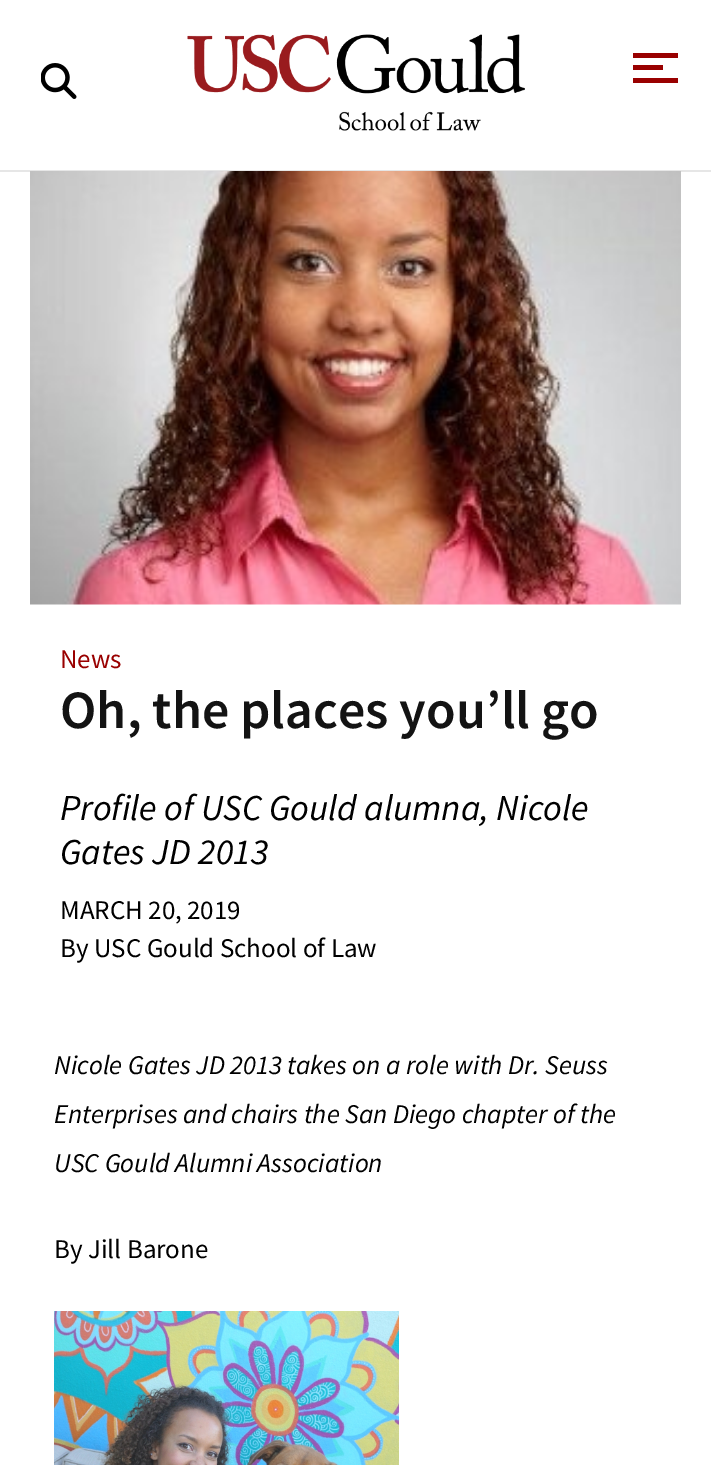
%!PS
<< /PageSize [711 1465] >> setpagedevice
/rgb { 3 { 255 div 3 1 roll } repeat setrgbcolor } def
/font { [ exch dup neg 0 0 3 -1 roll 0 0 ] selectfont } def
/text { moveto show } def
/picture { 5 dict begin { /h /w /y /x /name } { exch def } forall
  gsave x y translate w h scale
  w h 8 [w 0 0 h 0 0] name (r) file false 3 colorimage grestore end } def
0 1465 translate 1 -1 scale
4 setmiterlimit
255 255 255 rgb
0 0 711 1465 rectfill
230 230 230 rgb
0 170 711 2 rectfill
(img_01.rgb) 41 63 36 36 picture
(img_02.rgb) 187 34 338 97 picture
153 0 0 rgb
633 65 30 5 rectfill
633 53 45 5 rectfill
633 78 45 5 rectfill
(img_03.rgb) 30 171 651 434 picture
(img_04.rgb) 54 1311 345 154 picture
/SourceSansPro-Regular 27 font
(News) 60 668 text
/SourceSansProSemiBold-SemiBold 54 font
19 19 19 rgb
(Oh, the places you’ll go) 60 728 text
/SourceSansPro-Italic 36.5 font
0 0 0 rgb
(Profile of USC Gould alumna, Nicole) 60 820 text
(Gates JD 2013) 60 864 text
/SourceSansPro-Regular 27 font
(MARCH 20, 2019) 60 919 text
(By USC Gould School of Law) 60 957 text
/SourceSansPro-Italic 27 font
(Nicole Gates JD 2013 takes on a role with Dr. Seuss) 54 1074 text
(Enterprises and chairs the San Diego chapter of the) 54 1123 text
(USC Gould Alumni Association) 54 1172 text
/SourceSansPro-Regular 27 font
(By Jill Barone) 54 1258 text
showpage
